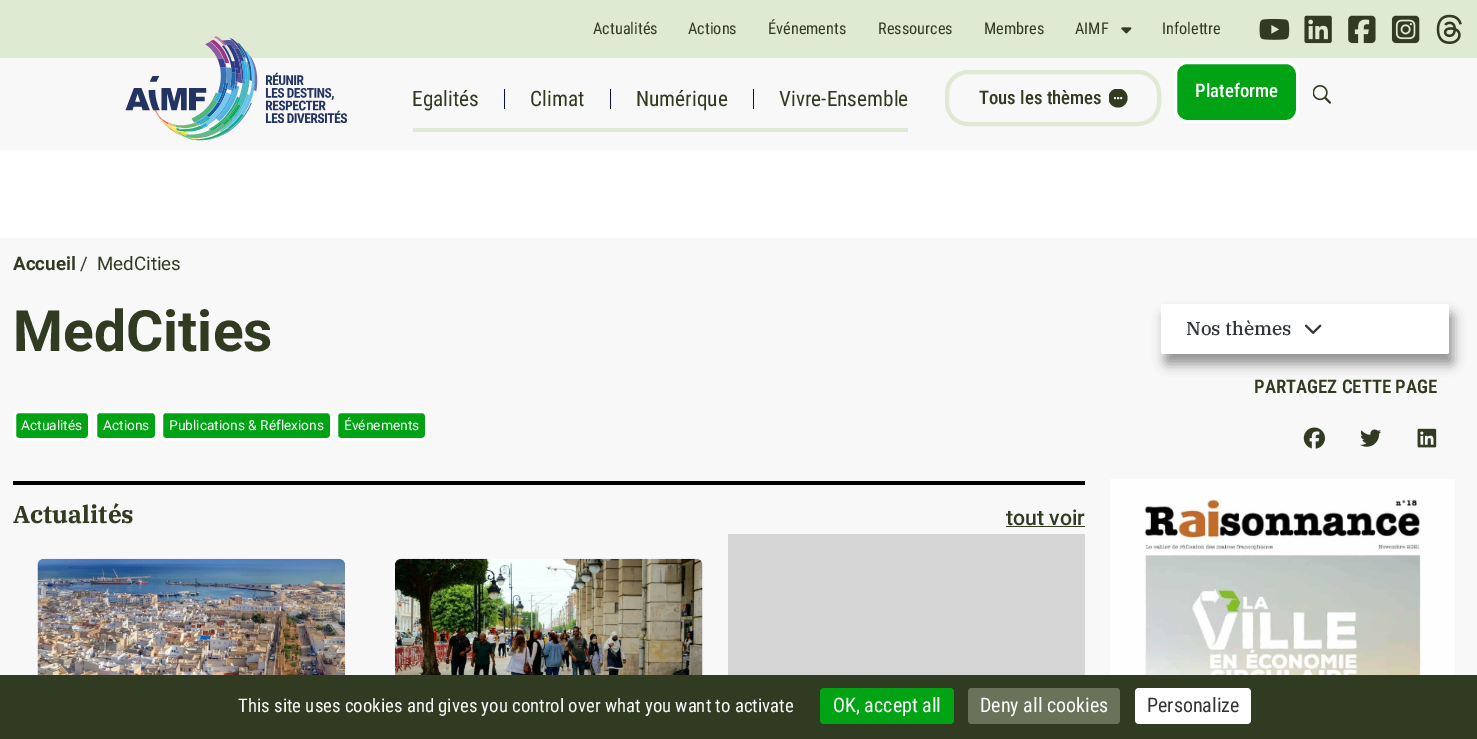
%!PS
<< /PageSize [1477 739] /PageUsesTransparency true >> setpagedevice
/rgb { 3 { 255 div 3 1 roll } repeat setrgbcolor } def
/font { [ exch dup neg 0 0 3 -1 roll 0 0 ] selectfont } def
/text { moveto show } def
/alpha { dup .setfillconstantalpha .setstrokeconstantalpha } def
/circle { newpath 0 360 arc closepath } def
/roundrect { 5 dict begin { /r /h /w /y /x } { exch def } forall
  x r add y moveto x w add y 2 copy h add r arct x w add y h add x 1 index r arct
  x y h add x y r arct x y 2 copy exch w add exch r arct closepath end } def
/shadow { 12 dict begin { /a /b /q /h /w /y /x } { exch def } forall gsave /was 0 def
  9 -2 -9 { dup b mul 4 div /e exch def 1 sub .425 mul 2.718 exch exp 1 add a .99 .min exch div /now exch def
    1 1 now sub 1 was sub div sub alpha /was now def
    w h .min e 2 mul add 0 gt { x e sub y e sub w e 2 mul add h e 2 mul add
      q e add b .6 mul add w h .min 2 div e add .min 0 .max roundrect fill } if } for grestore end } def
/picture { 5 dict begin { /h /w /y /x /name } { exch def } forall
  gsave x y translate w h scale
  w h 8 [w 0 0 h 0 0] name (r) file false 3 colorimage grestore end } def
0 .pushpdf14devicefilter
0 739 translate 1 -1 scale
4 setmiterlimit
255 255 255 rgb
0 0 1477 739 rectfill
223 234 210 rgb
0 0 1477 58 rectfill
(img_01.rgb) 1121 27 11 7 picture
(img_02.rgb) 1259 18 31 22 picture
(img_03.rgb) 1304 15 28 29 picture
(img_04.rgb) 1348 15 28 29 picture
(img_05.rgb) 1391 15 29 29 picture
(img_06.rgb) 1436 14 26 30 picture
248 248 248 rgb
0 58 1477 92 rectfill
(img_07.rgb) 125 36 222 105 picture
223 234 210 rgb
413 128 495 4 rectfill
10 17 77 rgb
504 89 1 20 rectfill
610 89 1 20 rectfill
753 89 1 20 rectfill
223 234 210 rgb
4 setlinewidth
947 72 212 52 21 roundrect stroke
gsave
1109 89 19 19 rectclip
48 59 33 rgb
1118 98 9.5 circle fill
grestore
255 255 255 rgb
1118.1 98.1 1 circle fill
1121.2 98.1 1 circle fill
1115 98.1 1 circle fill
0 163 20 rgb
1175.5 62.5 122 59 11.5 roundrect gsave fill grestore
255 255 255 rgb
3 setlinewidth
stroke
(img_08.rgb) 1313 85 19 19 picture
248 248 248 rgb
0 238 1477 437 rectfill
0 163 20 rgb
14.5 411.5 75 28 4.5 roundrect gsave fill grestore
255 255 255 rgb
stroke
0 163 20 rgb
95.5 411.5 61 28 4.5 roundrect gsave fill grestore
255 255 255 rgb
stroke
0 163 20 rgb
161.5 411.5 170 28 4.5 roundrect gsave fill grestore
255 255 255 rgb
stroke
0 163 20 rgb
336.5 411.5 90 28 4.5 roundrect gsave fill grestore
255 255 255 rgb
stroke
0 0 0 rgb
1165 314 288 50 2.5 6 0.41 shadow
255 255 255 rgb
1161 304 288 50 2.5 roundrect fill
(img_09.rgb) 1304 324 18 10 picture
(img_10.rgb) 1303 427 22 22 picture
(img_11.rgb) 1360 429 22 18 picture
(img_12.rgb) 1417 428 20 20 picture
0 0 0 rgb
13 481 1072 4 rectfill
48 59 33 rgb
1006 526 79 1 rectfill
213 213 213 rgb
728 534 357 141 rectfill
(img_13.rgb) 37 558 308 117 picture
(img_14.rgb) 395 558 308 117 picture
(img_15.rgb) 1110 479 345 196 picture
48 59 33 rgb
0 675 1477 64 rectfill
0 163 20 rgb
820 688 134 36 4 roundrect fill
104 115 90 rgb
968 688 152 36 4 roundrect fill
255 255 255 rgb
1135 688 116 36 4 roundrect fill
/RobotoCondensed-Regular 16.25 font
48 59 33 rgb
(Actualités) 593 34 text
(Actions) 688 34 text
(Événements) 768 34 text
(Ressources) 878 34 text
(Membres) 984 34 text
(AIMF) 1075 34 text
(Infolettre) 1162 34 text
/RobotoCondensed-Regular 21.25 font
(Egalités) 412 106 text
(Climat) 530 106 text
(Numérique) 636 106 text
(Vivre-Ensemble) 779 106 text
/RobotoCondensed-Medium 18.75 font
(Tous les thèmes) 979 104 text
255 255 255 rgb
(Plateforme) 1195 97 text
/Roboto-Bold 18.75 font
48 59 33 rgb
(Accueil) 13 270 text
/Roboto-Regular 18.75 font
(/) 80 270 text
(MedCities) 97 270 text
/Roboto-Bold 57 font
(MedCities) 13 351 text
/Roboto-Regular 13.75 font
255 255 255 rgb
(Actualités) 21 430 text
(Actions) 103 430 text
(Publications & Réflexions) 169 430 text
(Événements) 344 430 text
/IBMPlexSerif-Medium 18.75 font
51 55 61 rgb
(Nos thèmes) 1186 335 text
/RobotoCondensed-SemiBold 18.75 font
48 59 33 rgb
(PARTAGEZ CETTE PAGE) 1254 393 text
/IBMPlexSerif-Bold 24.5 font
(Actualités) 13 523 text
/Roboto-Medium 21.25 font
(tout voir) 1006 525 text
/RobotoCondensed-Regular 18.75 font
255 255 255 rgb
(This site uses cookies and gives you control over what you want to activate) 238 712 text
/RobotoCondensed-Regular 20 font
(OK, accept all) 833 712 text
(Deny all cookies) 980 712 text
51 51 51 rgb
(Personalize) 1147 712 text
.poppdf14devicefilter showpage
